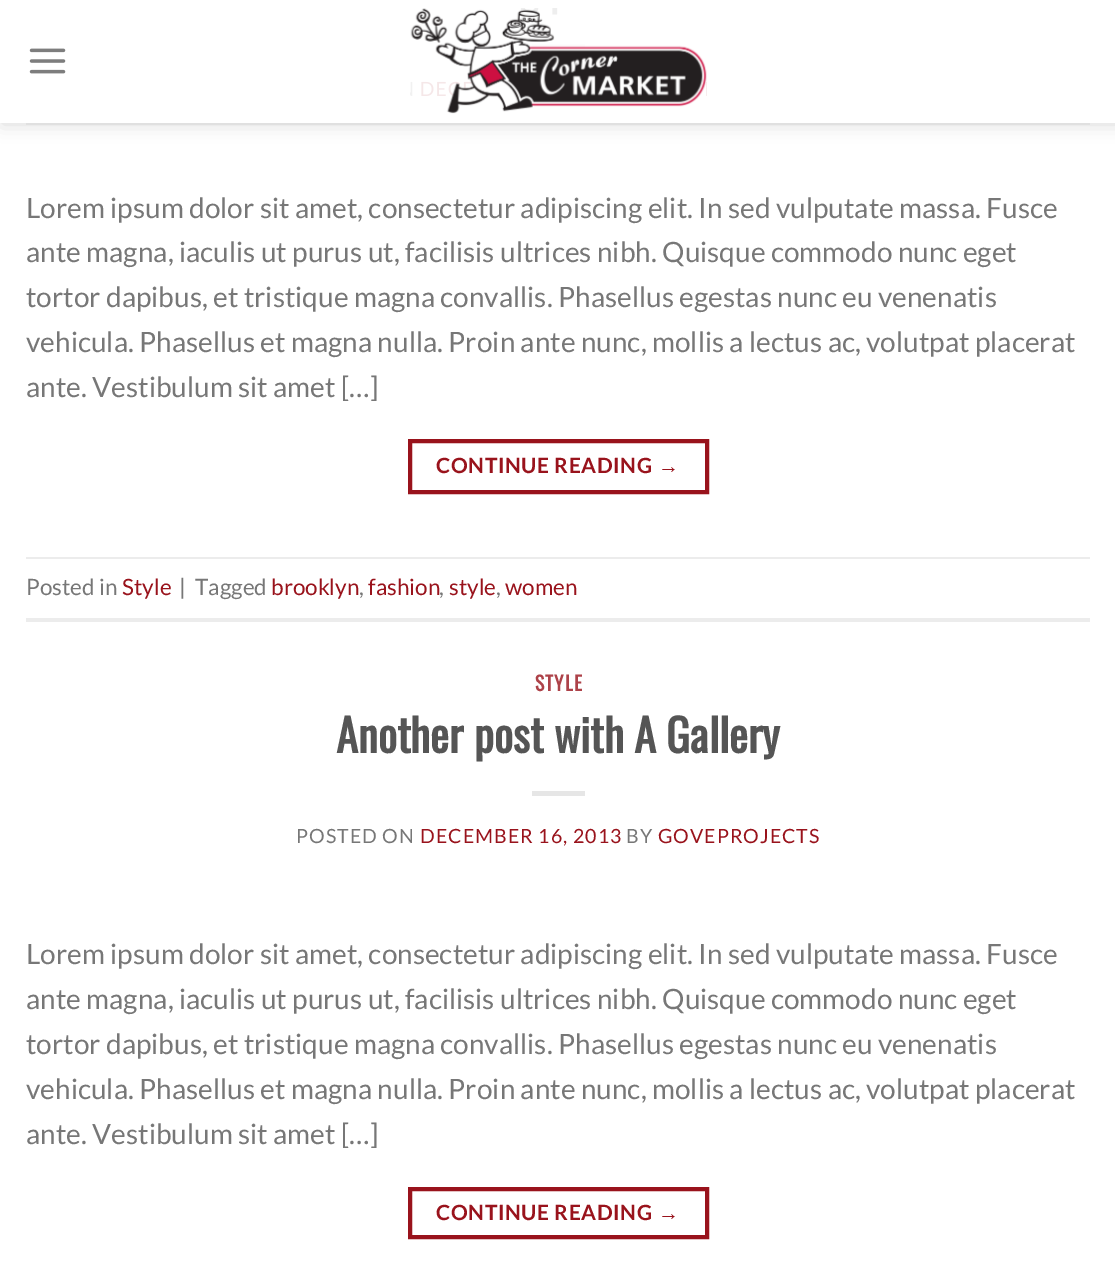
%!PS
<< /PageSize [1115 1287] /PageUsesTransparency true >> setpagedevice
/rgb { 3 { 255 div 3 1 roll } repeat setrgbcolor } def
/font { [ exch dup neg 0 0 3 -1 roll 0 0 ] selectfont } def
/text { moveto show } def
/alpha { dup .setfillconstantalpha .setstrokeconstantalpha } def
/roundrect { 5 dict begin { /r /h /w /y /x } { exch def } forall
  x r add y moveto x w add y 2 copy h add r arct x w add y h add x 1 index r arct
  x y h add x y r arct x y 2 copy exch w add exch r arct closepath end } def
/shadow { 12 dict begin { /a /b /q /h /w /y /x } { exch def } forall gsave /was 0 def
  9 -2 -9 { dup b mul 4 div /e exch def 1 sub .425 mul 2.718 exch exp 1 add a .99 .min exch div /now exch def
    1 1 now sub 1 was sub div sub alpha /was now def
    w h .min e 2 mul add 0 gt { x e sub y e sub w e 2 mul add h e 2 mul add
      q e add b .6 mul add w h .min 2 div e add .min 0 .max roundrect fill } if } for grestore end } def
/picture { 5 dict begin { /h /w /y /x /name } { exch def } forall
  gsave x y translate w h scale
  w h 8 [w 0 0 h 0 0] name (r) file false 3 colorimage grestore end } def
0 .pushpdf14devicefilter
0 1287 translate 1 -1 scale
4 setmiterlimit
255 255 255 rgb
0 0 1115 1287 rectfill
230 230 230 rgb
532 44 53 4 rectfill
gsave
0 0 moveto 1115 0 rlineto 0 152 rlineto -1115 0 rlineto closepath 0 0 moveto 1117 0 rlineto 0 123 rlineto -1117 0 rlineto closepath eoclip newpath
0 0 0 rgb
2 2 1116 122 0 9 0.15 shadow
grestore
0.9 alpha
255 255 255 rgb
0 44 1115 79 rectfill
1 alpha
(img_01.rgb) 29 48 37 26 picture
(img_02.rgb) 410 8 297 106 picture
224 224 224 rgb
26 123 1064 2 rectfill
153 19 28 rgb
4 setlinewidth
410 441 297 51 rectstroke
236 236 236 rgb
26 557 1064 2 rectfill
26 618 1064 4 rectfill
230 230 230 rgb
532 791 53 5 rectfill
153 19 28 rgb
410 1189 297 48 rectstroke
/Lato-Regular 28 font
119 119 119 rgb
(Lorem ipsum dolor sit amet, consectetur adipiscing elit. In sed vulputate massa. Fusce) 26 218 text
(ante magna, iaculis ut purus ut, facilisis ultrices nibh. Quisque commodo nunc eget) 26 262 text
(tortor dapibus, et tristique magna convallis. Phasellus egestas nunc eu venenatis) 26 307 text
(vehicula. Phasellus et magna nulla. Proin ante nunc, mollis a lectus ac, volutpat placerat) 26 352 text
(ante. Vestibulum sit amet […]) 26 397 text
/Lato-Bold 21 font
153 19 28 rgb
436 473 moveto 0.6 0 (CONTINUE READING) ashow
/LiberationSans-Bold 21 font
658 473 moveto 0.6 0 (→) ashow
/Lato-Regular 22.5 font
119 119 119 rgb
(Posted in) 26 595 text
153 19 28 rgb
(Style) 122 595 text
119 119 119 rgb
(|) 179 595 text
(Tagged) 195 595 text
153 19 28 rgb
(brooklyn) 271 595 text
119 119 119 rgb
(,) 359 595 text
153 19 28 rgb
(fashion) 368 595 text
119 119 119 rgb
(,) 439 595 text
153 19 28 rgb
(style) 449 595 text
119 119 119 rgb
(,) 496 595 text
153 19 28 rgb
(women) 505 595 text
/Oswald-Bold 19.6 font
173 66 73 rgb
535 691 moveto 1 0 (STYLE) ashow
/Oswald-Bold 44.75 font
85 85 85 rgb
(Another post with A Gallery) 336 753 text
/Lato-Regular 19.6 font
119 119 119 rgb
296 843 moveto 1 0 (POSTED ON) ashow
153 19 28 rgb
420 843 moveto 1 0 (DECEMBER 16, 2013) ashow
119 119 119 rgb
626 843 moveto 1 0 (BY) ashow
153 19 28 rgb
658 843 moveto 1 0 (GOVEPROJECTS) ashow
/Lato-Regular 28 font
119 119 119 rgb
(Lorem ipsum dolor sit amet, consectetur adipiscing elit. In sed vulputate massa. Fusce) 26 964 text
(ante magna, iaculis ut purus ut, facilisis ultrices nibh. Quisque commodo nunc eget) 26 1009 text
(tortor dapibus, et tristique magna convallis. Phasellus egestas nunc eu venenatis) 26 1054 text
(vehicula. Phasellus et magna nulla. Proin ante nunc, mollis a lectus ac, volutpat placerat) 26 1099 text
(ante. Vestibulum sit amet […]) 26 1144 text
/Lato-Bold 21 font
153 19 28 rgb
436 1220 moveto 0.6 0 (CONTINUE READING) ashow
/LiberationSans-Bold 21 font
658 1220 moveto 0.6 0 (→) ashow
.poppdf14devicefilter showpage
